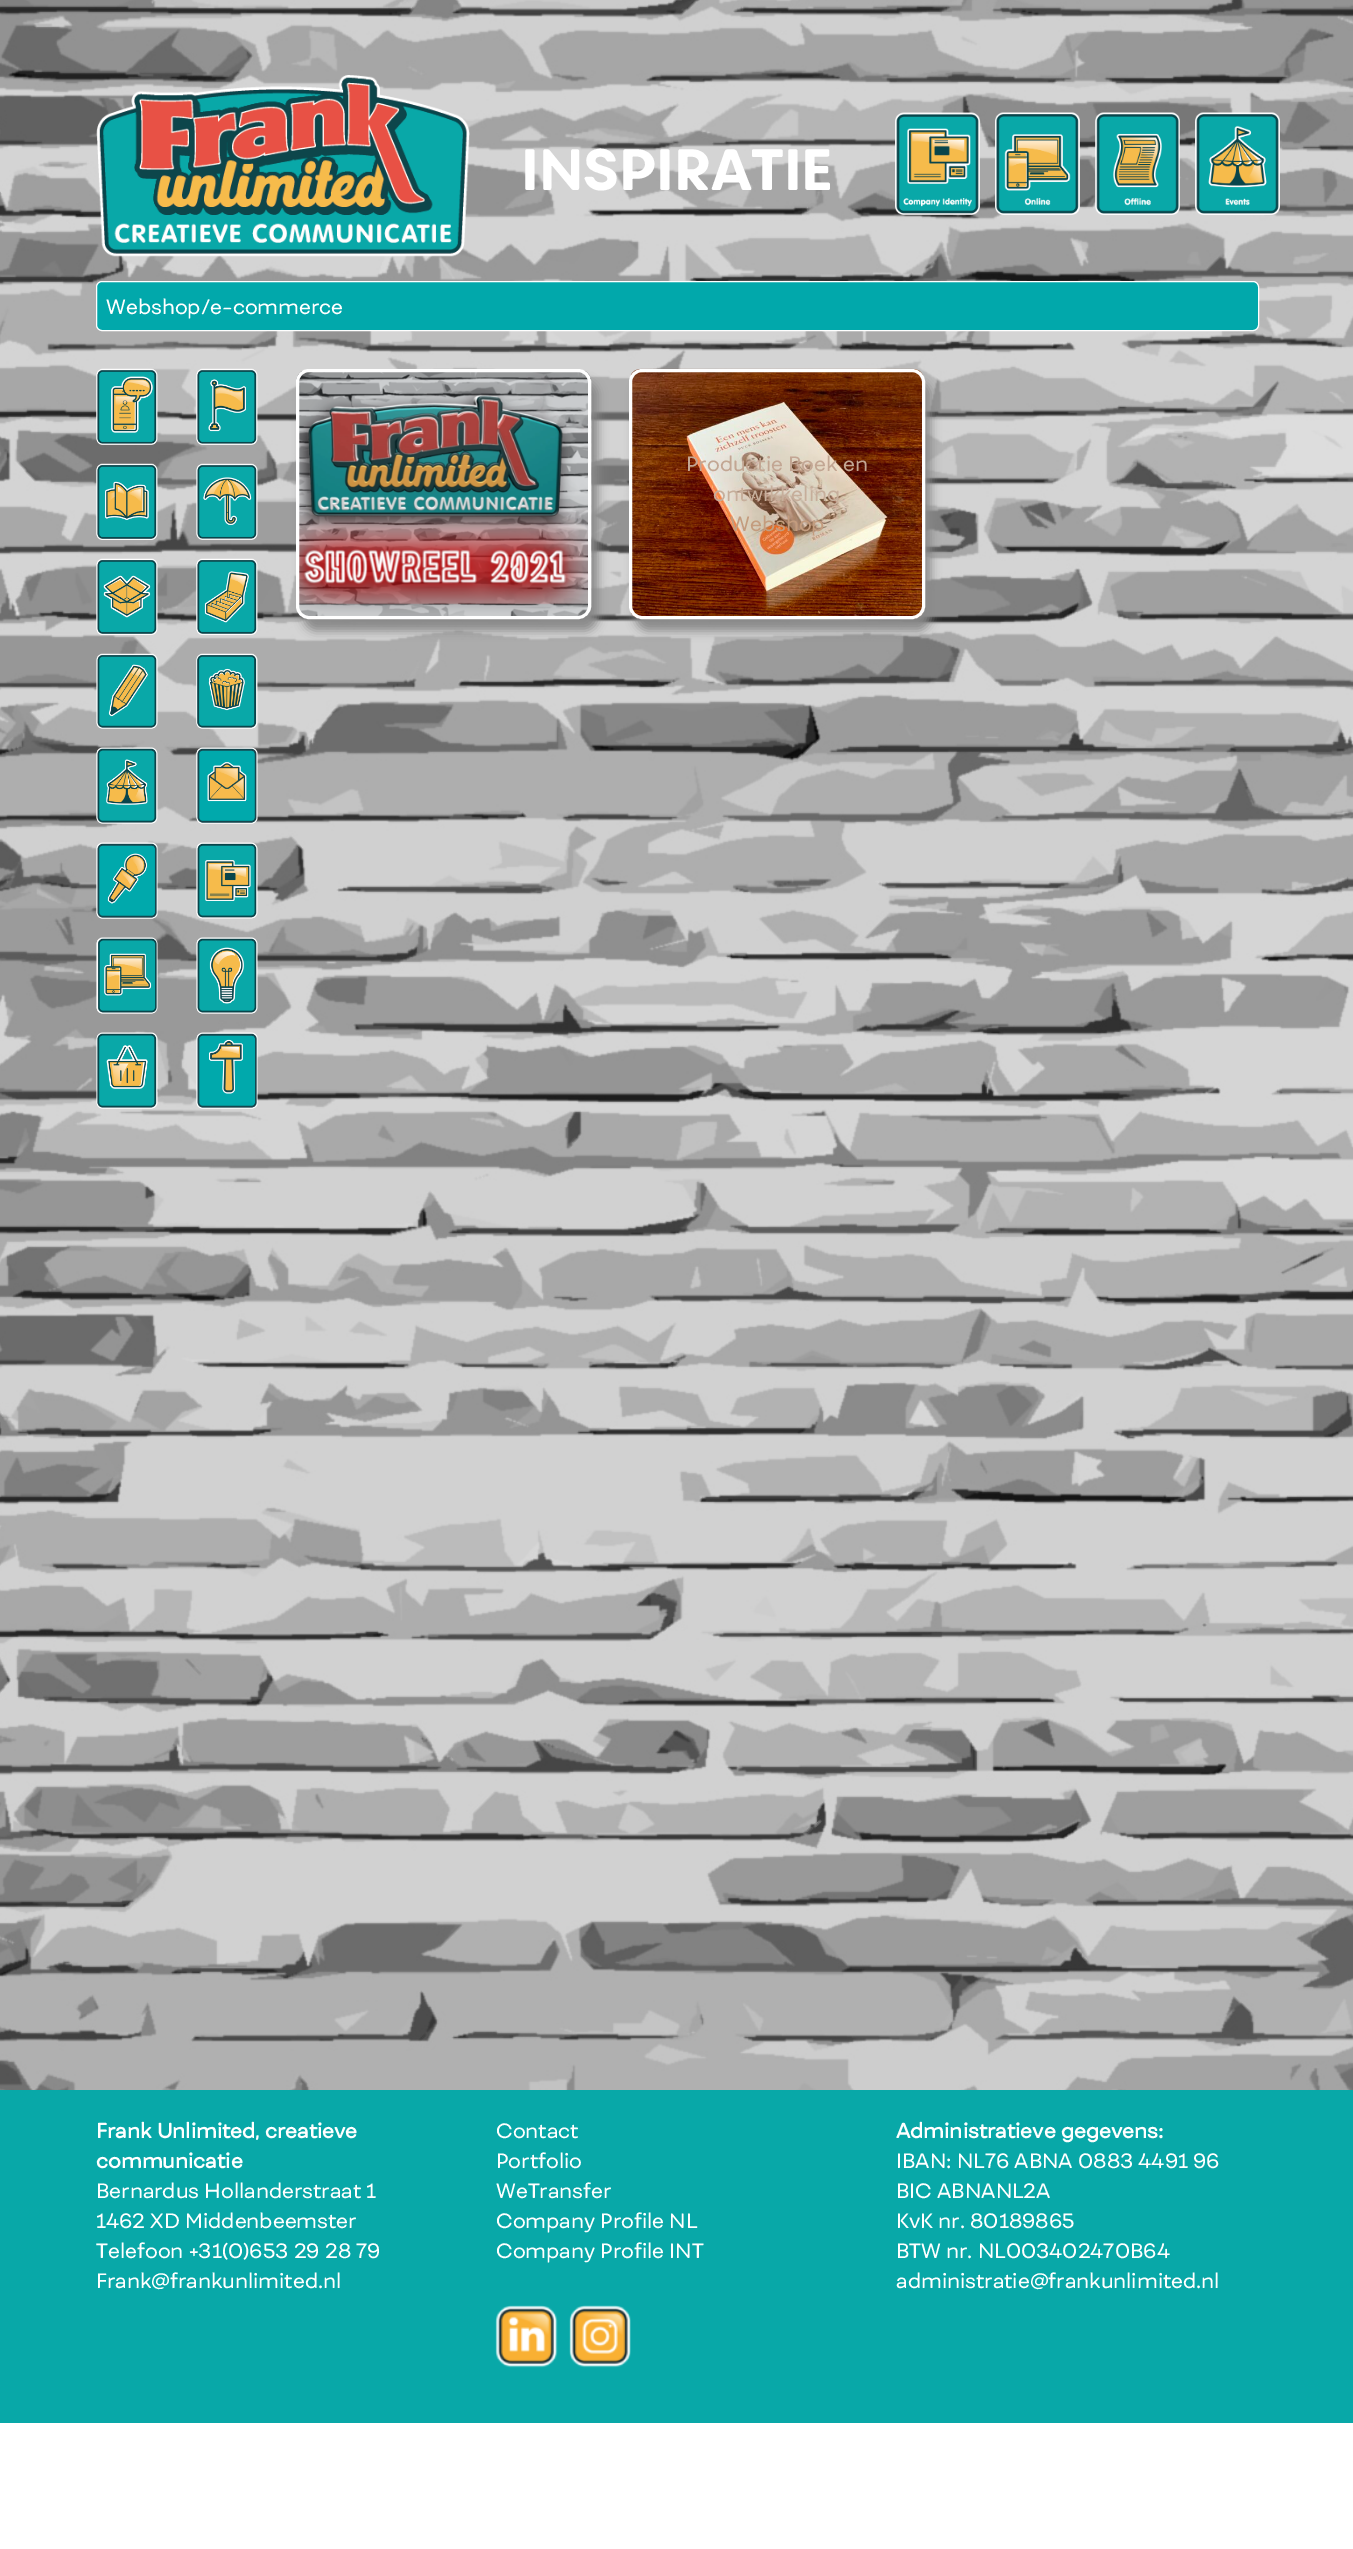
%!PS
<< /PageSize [1353 2549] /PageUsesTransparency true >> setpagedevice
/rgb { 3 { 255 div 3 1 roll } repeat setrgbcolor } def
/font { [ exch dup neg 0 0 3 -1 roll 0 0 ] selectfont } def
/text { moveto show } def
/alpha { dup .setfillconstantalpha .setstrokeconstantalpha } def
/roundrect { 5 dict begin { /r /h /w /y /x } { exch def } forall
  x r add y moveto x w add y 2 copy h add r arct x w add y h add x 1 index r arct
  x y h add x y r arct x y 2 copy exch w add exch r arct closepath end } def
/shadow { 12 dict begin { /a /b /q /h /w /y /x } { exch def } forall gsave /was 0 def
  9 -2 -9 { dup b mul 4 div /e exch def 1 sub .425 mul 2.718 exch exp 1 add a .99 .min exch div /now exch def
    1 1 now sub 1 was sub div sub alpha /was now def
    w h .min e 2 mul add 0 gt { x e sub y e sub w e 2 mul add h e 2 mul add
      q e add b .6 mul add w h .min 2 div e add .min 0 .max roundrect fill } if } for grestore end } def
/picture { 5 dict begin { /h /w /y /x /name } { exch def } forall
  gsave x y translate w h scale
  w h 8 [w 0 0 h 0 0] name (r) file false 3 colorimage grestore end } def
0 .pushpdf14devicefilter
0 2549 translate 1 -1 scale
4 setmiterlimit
255 255 255 rgb
0 0 1353 2549 rectfill
(img_06.rgb) 0 0 1353 2090 picture
(img_01.rgb) 96 75 374 182 picture
(img_02.rgb) 895 112 85 103 picture
(img_03.rgb) 995 112 85 103 picture
(img_04.rgb) 1095 112 85 103 picture
(img_05.rgb) 1195 112 85 103 picture
1 168 171 rgb
96.5 281.5 1162 49 5.5 roundrect gsave fill grestore
255 255 255 rgb
stroke
(img_07.rgb) 96 368 62 77 picture
(img_08.rgb) 196 368 62 77 picture
(img_09.rgb) 96 463 62 77 picture
(img_10.rgb) 196 463 62 77 picture
(img_11.rgb) 96 558 62 77 picture
(img_12.rgb) 196 558 62 77 picture
(img_13.rgb) 96 653 62 76 picture
(img_14.rgb) 196 653 62 76 picture
(img_15.rgb) 96 747 62 77 picture
(img_16.rgb) 196 747 62 77 picture
(img_17.rgb) 96 842 62 77 picture
(img_18.rgb) 196 842 62 77 picture
(img_19.rgb) 96 937 62 77 picture
(img_20.rgb) 196 937 62 77 picture
(img_21.rgb) 96 1032 62 77 picture
(img_22.rgb) 196 1032 62 77 picture
136 136 136 rgb
303 381 295 250 13 5 1 shadow
(img_23.rgb) 296 371 296 246 picture
255 255 255 rgb
3 setlinewidth
297.5 370.5 292 247 11.5 roundrect stroke
136 136 136 rgb
635 381 296 250 13 5 1 shadow
(img_24.rgb) 631 368 292 251 picture
255 255 255 rgb
630.5 370.5 293 247 11.5 roundrect stroke
8 168 168 rgb
0 2090 1353 333 rectfill
(img_25.rgb) 495 2305 63 63 picture
(img_26.rgb) 569 2305 62 63 picture
/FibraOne-ExtraBold 56 font
255 255 255 rgb
(INSPIRATIE) 521 190 text
/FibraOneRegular-Regular 20 font
(Webshop/e-commerce) 106 314 text
194 166 147 rgb
(Productie Boek en) 686 471 text
198 174 155 rgb
(ontwikkeling) 713 501 text
195 156 126 rgb
(Webshop) 730 531 text
/FibraOneRegular-Bold 20 font
255 255 255 rgb
(Frank Unlimited, creatieve) 96 2138 text
(communicatie) 96 2168 text
/FibraOneRegular-Regular 20 font
(Bernardus Hollanderstraat 1) 96 2198 text
(1462 XD Middenbeemster) 96 2228 text
(Telefoon +31\(0\)653 29 28 79) 96 2258 text
(Frank@frankunlimited.nl) 96 2288 text
(Contact) 496 2138 text
(Portfolio) 496 2168 text
(WeTransfer) 496 2198 text
(Company Profile NL) 496 2228 text
(Company Profile INT) 496 2258 text
/FibraOneRegular-Bold 20 font
(Administratieve gegevens:) 896 2138 text
/FibraOneRegular-Regular 20 font
(IBAN: NL76 ABNA 0883 4491 96) 896 2168 text
(BIC ABNANL2A) 896 2198 text
(KvK nr. 80189865) 896 2228 text
(BTW nr. NL003402470B64) 896 2258 text
(administratie@frankunlimited.nl) 896 2288 text
.poppdf14devicefilter showpage
